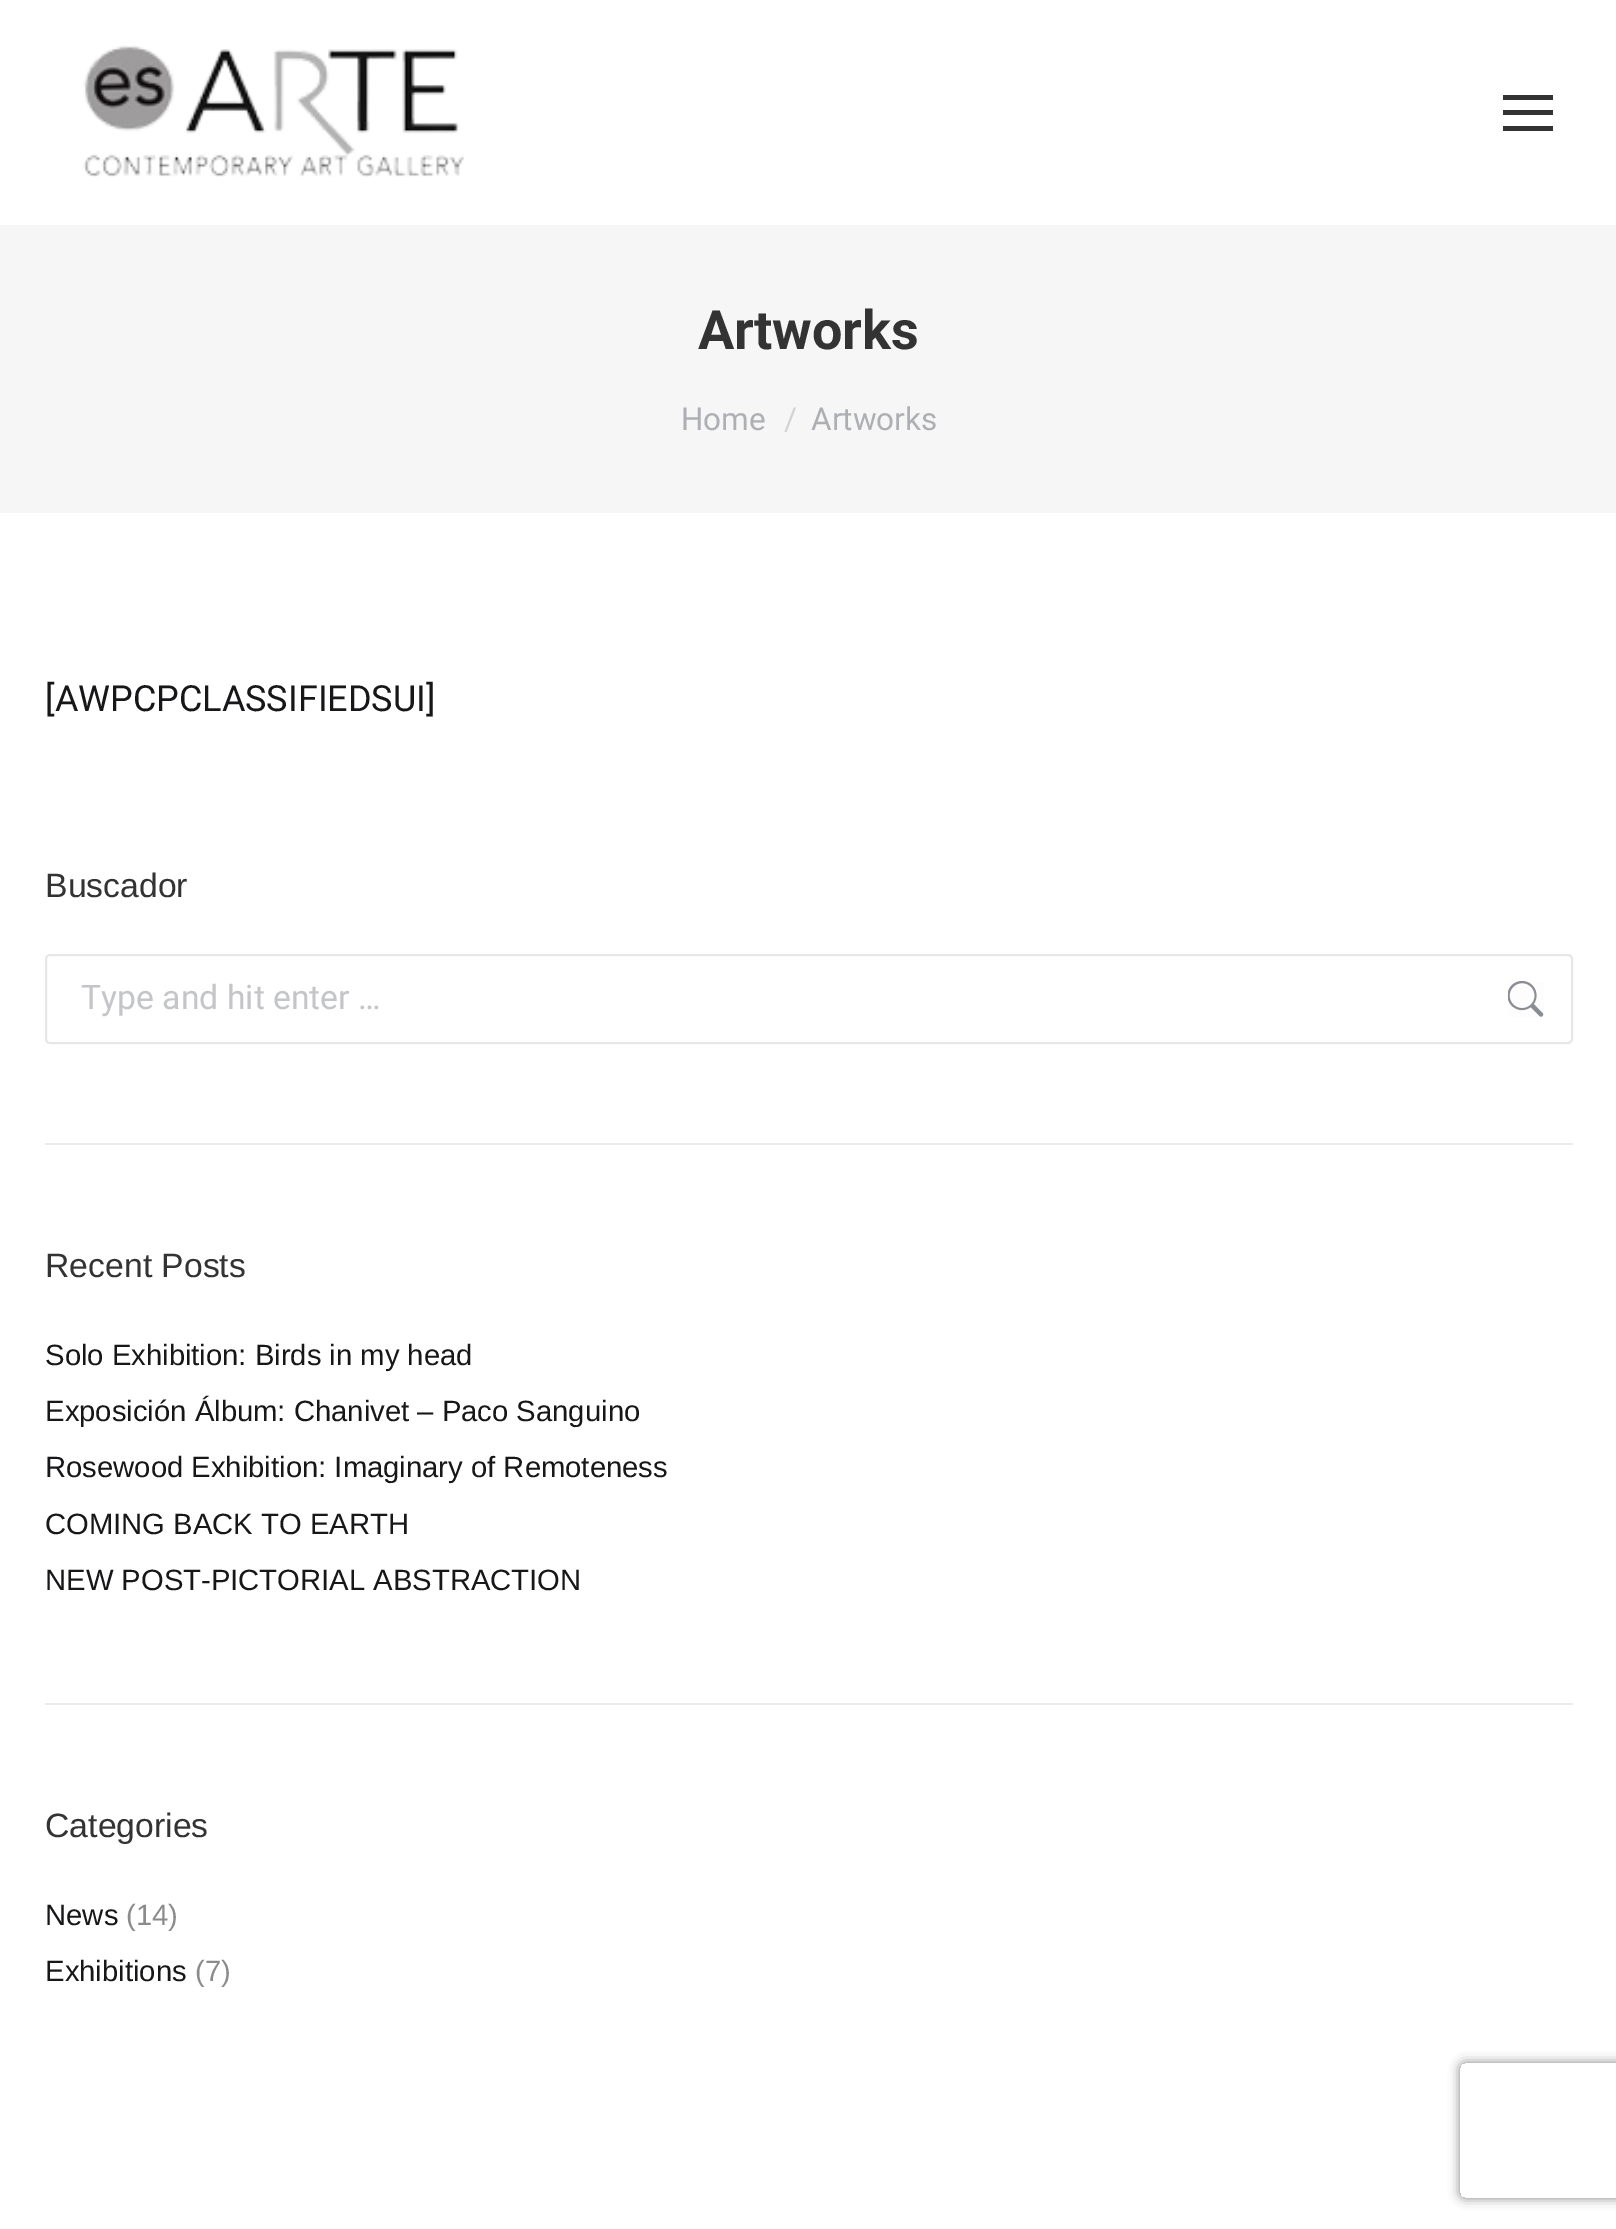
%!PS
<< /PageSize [1616 2229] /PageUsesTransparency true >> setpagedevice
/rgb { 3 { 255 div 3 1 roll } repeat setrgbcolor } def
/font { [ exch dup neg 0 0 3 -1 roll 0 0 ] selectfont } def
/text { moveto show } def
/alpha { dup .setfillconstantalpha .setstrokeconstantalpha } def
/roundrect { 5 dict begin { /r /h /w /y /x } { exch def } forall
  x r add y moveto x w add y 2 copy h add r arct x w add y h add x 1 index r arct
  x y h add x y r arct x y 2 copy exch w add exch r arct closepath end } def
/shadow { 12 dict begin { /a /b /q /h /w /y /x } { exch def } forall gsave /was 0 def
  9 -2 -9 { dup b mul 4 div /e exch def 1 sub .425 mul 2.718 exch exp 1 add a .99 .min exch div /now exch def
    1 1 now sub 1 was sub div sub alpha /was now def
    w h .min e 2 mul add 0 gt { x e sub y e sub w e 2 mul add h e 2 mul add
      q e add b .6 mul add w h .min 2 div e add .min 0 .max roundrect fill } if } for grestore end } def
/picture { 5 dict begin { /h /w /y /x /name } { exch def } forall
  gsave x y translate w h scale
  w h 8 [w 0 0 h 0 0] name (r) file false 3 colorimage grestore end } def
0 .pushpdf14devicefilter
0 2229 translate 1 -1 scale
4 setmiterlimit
255 255 255 rgb
0 0 1616 2229 rectfill
(img_01.rgb) 83 45 381 132 picture
51 51 51 rgb
1503 95 50 5 rectfill
1503 110 50 5 rectfill
1503 126 50 5 rectfill
246 246 246 rgb
0 225 1616 288 rectfill
231 231 231 rgb
2 setlinewidth
46 955 1526 88 4 roundrect stroke
(img_02.rgb) 1508 981 36 36 picture
235 235 235 rgb
45 1143 1528 2 rectfill
45 1703 1528 2 rectfill
gsave
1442 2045 moveto 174 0 rlineto 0 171 rlineto -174 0 rlineto closepath 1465 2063 moveto 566 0 rlineto 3 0 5 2 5 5 rcurveto 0 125 rlineto 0 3 -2 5 -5 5 rcurveto -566 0 rlineto -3 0 -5 -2 -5 -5 rcurveto 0 -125 rlineto 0 -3 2 -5 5 -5 rcurveto closepath eoclip newpath
128 128 128 rgb
1460 2063 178 135 5 5.5 1 shadow
grestore
/Roboto-Bold 54 font
51 51 51 rgb
(Artworks) 698 349 text
/Roboto-Regular 31.5 font
173 175 179 rgb
(Home) 681 430 text
210 211 213 rgb
(/) 784 430 text
173 175 179 rgb
(Artworks) 811 430 text
/Roboto-Regular 36 font
23 23 25 rgb
([AWPCPCLASSIFIEDSUI]) 45 711 text
/LiberationSans-Regular 33.75 font
51 51 51 rgb
(Buscador) 45 897 text
/Roboto-Regular 33.75 font
196 197 201 rgb
(Type and hit enter …) 81 1009 text
/LiberationSans-Regular 33.75 font
51 51 51 rgb
(Recent Posts) 45 1277 text
/LiberationSans-Regular 29.25 font
23 23 25 rgb
(Solo Exhibition: Birds in my head) 45 1365 text
(Exposición Álbum: Chanivet – Paco Sanguino) 45 1421 text
(Rosewood Exhibition: Imaginary of Remoteness) 45 1477 text
(COMING BACK TO EARTH) 45 1534 text
(NEW POST-PICTORIAL ABSTRACTION) 45 1590 text
/LiberationSans-Regular 33.75 font
51 51 51 rgb
(Categories) 45 1837 text
/LiberationSans-Regular 29.25 font
23 23 25 rgb
(News) 45 1925 text
139 139 140 rgb
(\(14\)) 126 1925 text
23 23 25 rgb
(Exhibitions) 45 1981 text
139 139 140 rgb
(\(7\)) 195 1981 text
.poppdf14devicefilter showpage
